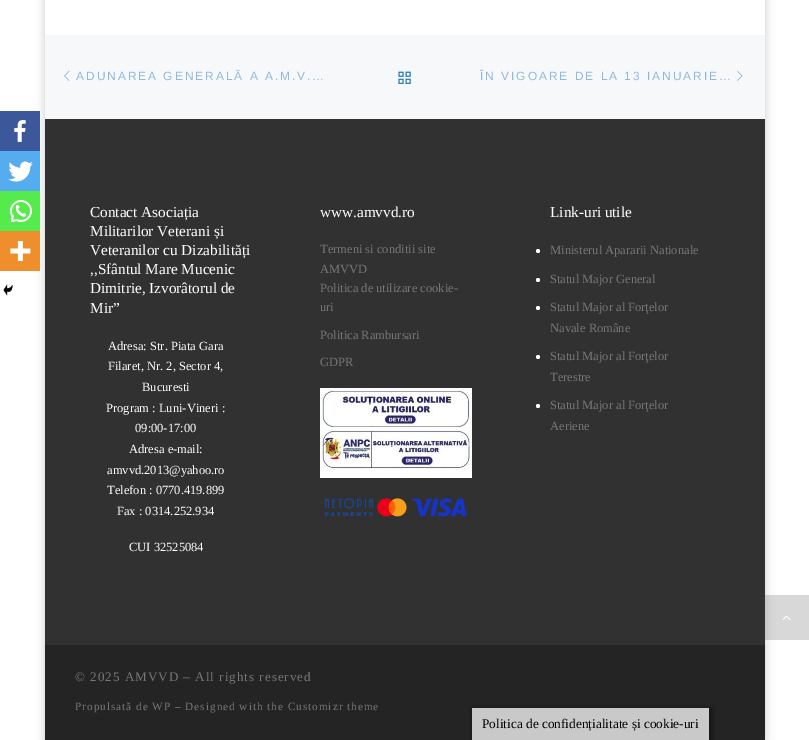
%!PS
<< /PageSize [809 740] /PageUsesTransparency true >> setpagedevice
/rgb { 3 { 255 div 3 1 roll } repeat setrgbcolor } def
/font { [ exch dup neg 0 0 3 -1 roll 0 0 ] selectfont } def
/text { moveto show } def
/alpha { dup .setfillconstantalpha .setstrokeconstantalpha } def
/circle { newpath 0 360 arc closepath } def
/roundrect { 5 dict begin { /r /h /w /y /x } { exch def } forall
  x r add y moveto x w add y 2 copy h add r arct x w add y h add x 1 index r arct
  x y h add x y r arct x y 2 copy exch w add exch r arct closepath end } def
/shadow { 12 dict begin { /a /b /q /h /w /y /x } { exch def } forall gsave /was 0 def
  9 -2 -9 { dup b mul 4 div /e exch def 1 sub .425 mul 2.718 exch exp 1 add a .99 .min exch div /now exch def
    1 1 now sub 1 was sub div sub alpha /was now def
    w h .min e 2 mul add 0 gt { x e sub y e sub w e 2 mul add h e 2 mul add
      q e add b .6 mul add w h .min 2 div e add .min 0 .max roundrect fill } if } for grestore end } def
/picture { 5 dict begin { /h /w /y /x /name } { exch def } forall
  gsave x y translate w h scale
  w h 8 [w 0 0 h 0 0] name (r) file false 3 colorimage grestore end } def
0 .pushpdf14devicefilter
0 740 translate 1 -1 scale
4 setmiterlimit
255 255 255 rgb
0 0 809 740 rectfill
gsave
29 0 moveto 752 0 rlineto 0 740 rlineto -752 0 rlineto closepath 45 -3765 moveto 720 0 rlineto 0 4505 rlineto -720 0 rlineto closepath eoclip newpath
0 0 0 rgb
45 -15 720 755 0 5 0.2 shadow
grestore
247 248 249 rgb
45 35 720 84 rectfill
(img_01.rgb) 64 70 6 11 picture
(img_02.rgb) 398 71 13 13 picture
(img_03.rgb) 737 70 6 11 picture
60 88 154 rgb
0 111 40 40 rectfill
(img_04.rgb) 14 120 12 22 picture
85 172 238 rgb
0 151 40 40 rectfill
(img_05.rgb) 8 161 25 21 picture
85 235 76 rgb
0 191 40 40 rectfill
(img_06.rgb) 10 200 22 23 picture
238 142 45 rgb
0 231 40 40 rectfill
(img_07.rgb) 10 241 21 20 picture
(img_08.rgb) 3 284 10 12 picture
49 49 49 rgb
45 119 720 526 rectfill
(img_09.rgb) 320 388 152 41 picture
(img_10.rgb) 320 429 152 49 picture
(img_11.rgb) 325 498 142 19 picture
255 255 255 rgb
538 251 2 circle fill
538 280 2 circle fill
538 308 2 circle fill
538 357 2 circle fill
538 406 2 circle fill
36 36 36 rgb
45 645 720 95 rectfill
0.2 alpha
59 59 59 rgb
764 595 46 45 2 roundrect fill
1 alpha
(img_12.rgb) 782 615 9 5 picture
22 22 22 rgb
472 708 241 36 0 2.5 1 shadow
201 201 201 rgb
472 708 237 32 rectfill
/LiberationSans-Regular 11.9 font
143 184 220 rgb
76 80 moveto 2 0 (ADUNAREA GENERALĂ A A.M.V.…) ashow
480 80 moveto 2 0 (ÎN VIGOARE DE LA 13 IANUARIE…) ashow
/LiberationSerif-Regular 15.25 font
255 255 255 rgb
(Contact Asociația) 90 217 text
(Militarilor Veterani și) 90 236 text
(Veteranilor cu Dizabilități) 90 255 text
(,,Sfântul Mare Mucenic) 90 274 text
(Dimitrie, Izvorâtorul de) 90 293 text
(Mir”) 90 313 text
/LiberationSerif-Regular 12.5 font
(Adresa: Str. Piata Gara) 108 350 text
(Filaret, Nr. 2, Sector 4,) 108 370 text
(Bucuresti) 142 391 text
(Program : Luni-Vineri :) 106 412 text
(09:00-17:00) 135 432 text
(Adresa e-mail:) 129 453 text
(amvvd.2013@yahoo.ro) 107 474 text
(Telefon : 0770.419.899) 107 494 text
(Fax : 0314.252.934) 117 515 text
(CUI 32525084) 129 551 text
/LiberationSerif-Regular 15.25 font
(www.amvvd.ro) 320 217 text
/LiberationSerif-Regular 12.5 font
119 119 119 rgb
(Termeni si conditii site) 320 253 text
(AMVVD) 320 273 text
(Politica de utilizare cookie-) 320 292 text
(uri) 320 311 text
(Politica Rambursari) 320 339 text
(GDPR) 320 366 text
/LiberationSerif-Regular 15.25 font
255 255 255 rgb
(Link-uri utile) 550 217 text
/LiberationSerif-Regular 12.5 font
119 119 119 rgb
(Ministerul Apararii Nationale) 550 254 text
(Statul Major General) 550 283 text
(Statul Major al Forţelor) 550 311 text
(Navale Române) 550 332 text
(Statul Major al Forţelor) 550 360 text
(Terestre) 550 381 text
(Statul Major al Forţelor) 550 409 text
(Aeriene) 550 430 text
/LiberationSerif-Regular 13.1 font
75 681 moveto 1 0 (© 2025 AMVVD – All rights reserved) ashow
/LiberationSerif-Regular 11.2 font
75 710 moveto 1 0 (Propulsată de WP – Designed with the Customizr theme) ashow
/LiberationSerif-Regular 13.3 font
0 0 0 rgb
(Politica de confidențialitate și cookie-uri) 482 728 text
.poppdf14devicefilter showpage
